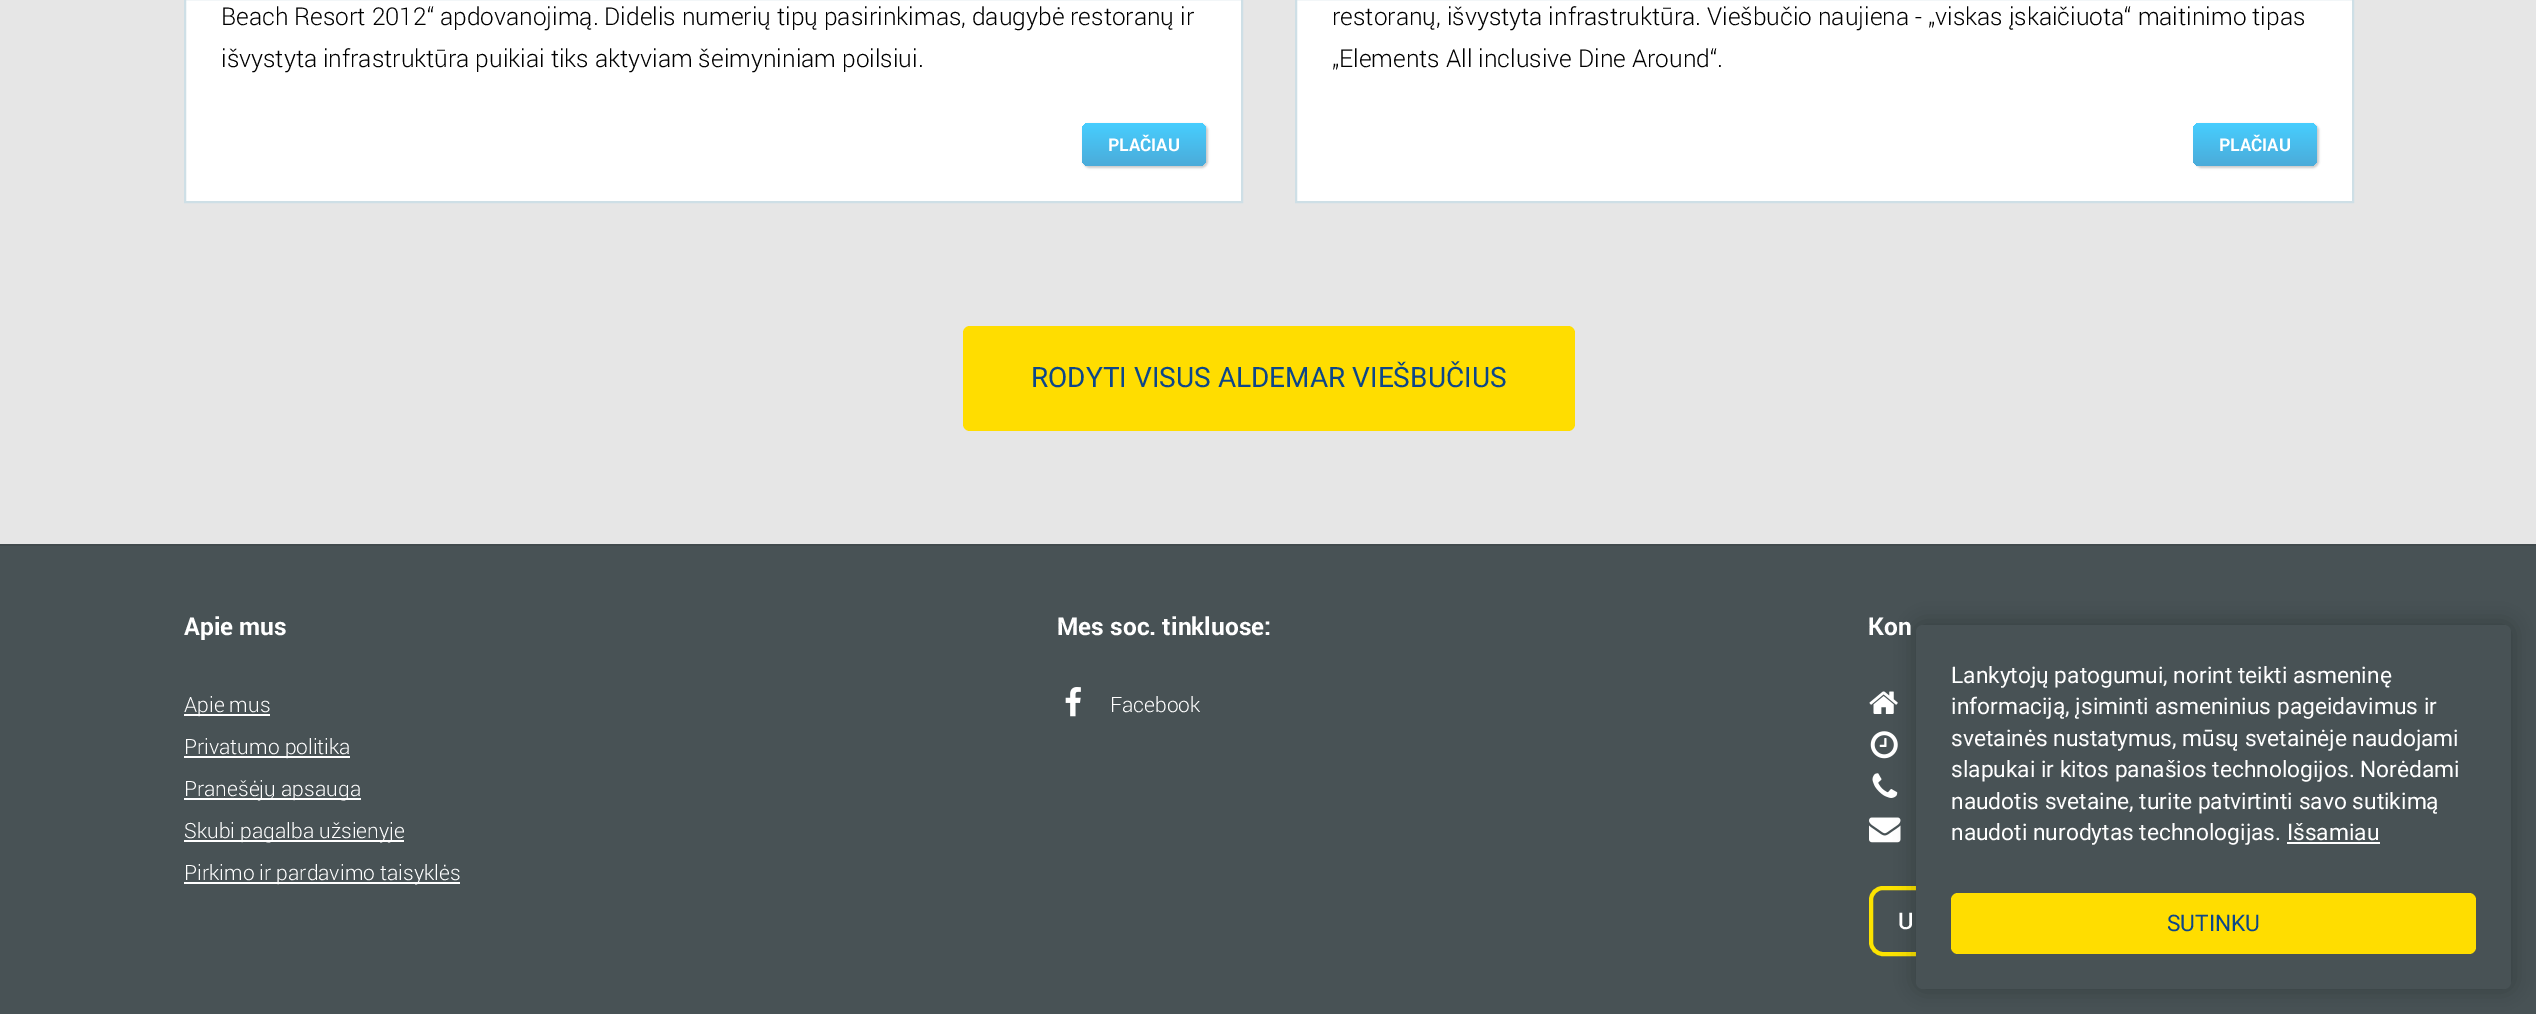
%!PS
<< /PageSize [2536 1014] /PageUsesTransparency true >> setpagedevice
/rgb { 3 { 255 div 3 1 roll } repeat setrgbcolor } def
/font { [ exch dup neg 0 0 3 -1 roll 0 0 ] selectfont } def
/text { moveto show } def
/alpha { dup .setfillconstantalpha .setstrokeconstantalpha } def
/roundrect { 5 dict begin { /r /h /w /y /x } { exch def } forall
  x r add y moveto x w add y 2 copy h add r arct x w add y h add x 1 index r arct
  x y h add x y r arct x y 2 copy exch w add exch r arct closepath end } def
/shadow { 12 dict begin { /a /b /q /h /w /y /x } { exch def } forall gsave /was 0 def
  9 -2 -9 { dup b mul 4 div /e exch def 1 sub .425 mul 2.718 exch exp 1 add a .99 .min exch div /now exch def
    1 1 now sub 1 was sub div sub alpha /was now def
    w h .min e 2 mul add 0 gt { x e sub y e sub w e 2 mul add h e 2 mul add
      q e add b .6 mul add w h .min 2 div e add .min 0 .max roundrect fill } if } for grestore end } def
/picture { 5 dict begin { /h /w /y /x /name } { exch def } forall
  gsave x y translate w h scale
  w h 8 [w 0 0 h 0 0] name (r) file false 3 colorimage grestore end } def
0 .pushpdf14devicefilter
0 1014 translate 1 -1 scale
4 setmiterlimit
230 230 230 rgb
0 0 2536 1014 rectfill
255 255 255 rgb
185 -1 moveto 1057 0 rlineto 0 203 rlineto -1057 0 rlineto closepath gsave fill grestore
206 223 230 rgb
2 setlinewidth
stroke
0 0 0 rgb
1083 124 125 44 7 1 0.2 shadow
gsave 1082 123 124 43 7 roundrect clip newpath
<< /ShadingType 2 /ColorSpace /DeviceRGB /Coords [1144 123 1144 166] /Extend [true true] /Function << /FunctionType 2 /Domain [0 1] /C0 [0.278 0.808 1] /C1 [0.294 0.671 0.851] /N 1 >> >> shfill grestore
255 255 255 rgb
1296 -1 moveto 1057 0 rlineto 0 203 rlineto -1057 0 rlineto closepath gsave fill grestore
206 223 230 rgb
stroke
0 0 0 rgb
2195 124 124 44 7 1 0.2 shadow
gsave 2193 123 124 43 7 roundrect clip newpath
<< /ShadingType 2 /ColorSpace /DeviceRGB /Coords [2255 123 2255 166] /Extend [true true] /Function << /FunctionType 2 /Domain [0 1] /C0 [0.278 0.808 1] /C1 [0.294 0.671 0.851] /N 1 >> >> shfill grestore
255 221 0 rgb
963 326 612 105 7 roundrect fill
72 82 85 rgb
0 546 2536 468 rectfill
65 74 77 rgb
0 544 2536 2 rectfill
255 255 255 rgb
184 714 86 2 rectfill
184 756 166 2 rectfill
184 798 177 2 rectfill
184 840 220 2 rectfill
184 882 276 2 rectfill
(img_01.rgb) 1065 687 16 30 picture
(img_02.rgb) 1869 691 29 23 picture
(img_03.rgb) 1870 731 28 28 picture
(img_04.rgb) 1872 773 26 25 picture
(img_05.rgb) 1869 817 32 26 picture
252 227 0 rgb
4 setlinewidth
1871 888 372 66 12 roundrect stroke
0 0 0 rgb
1913 621 602 371 11 9 0.2 shadow
72 82 85 rgb
1916 625 595 364 7 roundrect fill
255 255 255 rgb
2287 842 93 2 rectfill
255 221 0 rgb
1951 893 525 61 7 roundrect fill
/Roboto-Light 24.5 font
0 0 0 rgb
(Beach Resort 2012“ apdovanojimą. Didelis numerių tipų pasirinkimas, daugybė restoranų ir) 221 25 text
(išvystyta infrastruktūra puikiai tiks aktyviam šeimyniniam poilsiui.) 221 67 text
/Roboto-Bold 17.5 font
255 255 255 rgb
(PLAČIAU) 1108 151 text
/Roboto-Light 24.5 font
0 0 0 rgb
(restoranų, išvystyta infrastruktūra. Viešbučio naujiena - „viskas įskaičiuota“ maitinimo tipas) 1332 25 text
(„Elements All inclusive Dine Around“.) 1332 67 text
/Roboto-Bold 17.5 font
255 255 255 rgb
(PLAČIAU) 2219 151 text
/Roboto-Regular 28 font
13 70 137 rgb
(RODYTI VISUS ALDEMAR VIEŠBUČIUS) 1031 387 text
/Roboto-Bold 24.5 font
255 255 255 rgb
(Apie mus) 184 635 text
/Roboto-Light 21 font
(Apie mus) 184 712 text
(Privatumo politika) 184 754 text
(Pranešėjų apsauga) 184 796 text
(Skubi pagalba užsienyje) 184 838 text
(Pirkimo ir pardavimo taisyklės) 184 880 text
/Roboto-Bold 24.5 font
(Mes soc. tinkluose:) 1057 635 text
/Roboto-Light 21 font
(Facebook) 1110 712 text
/Roboto-Bold 24.5 font
(Kon) 1868 635 text
/Roboto-Medium 22.75 font
(U) 1898 929 text
/Roboto-Regular 22.75 font
(Lankytojų patogumui, norint teikti asmeninę) 1951 683 text
(informaciją, įsiminti asmeninius pageidavimus ir) 1951 714 text
(svetainės nustatymus, mūsų svetainėje naudojami) 1951 746 text
(slapukai ir kitos panašios technologijos. Norėdami) 1951 777 text
(naudotis svetaine, turite patvirtinti savo sutikimą) 1951 809 text
(naudoti nurodytas technologijas. Išsamiau) 1951 840 text
13 70 137 rgb
(SUTINKU) 2167 931 text
.poppdf14devicefilter showpage
